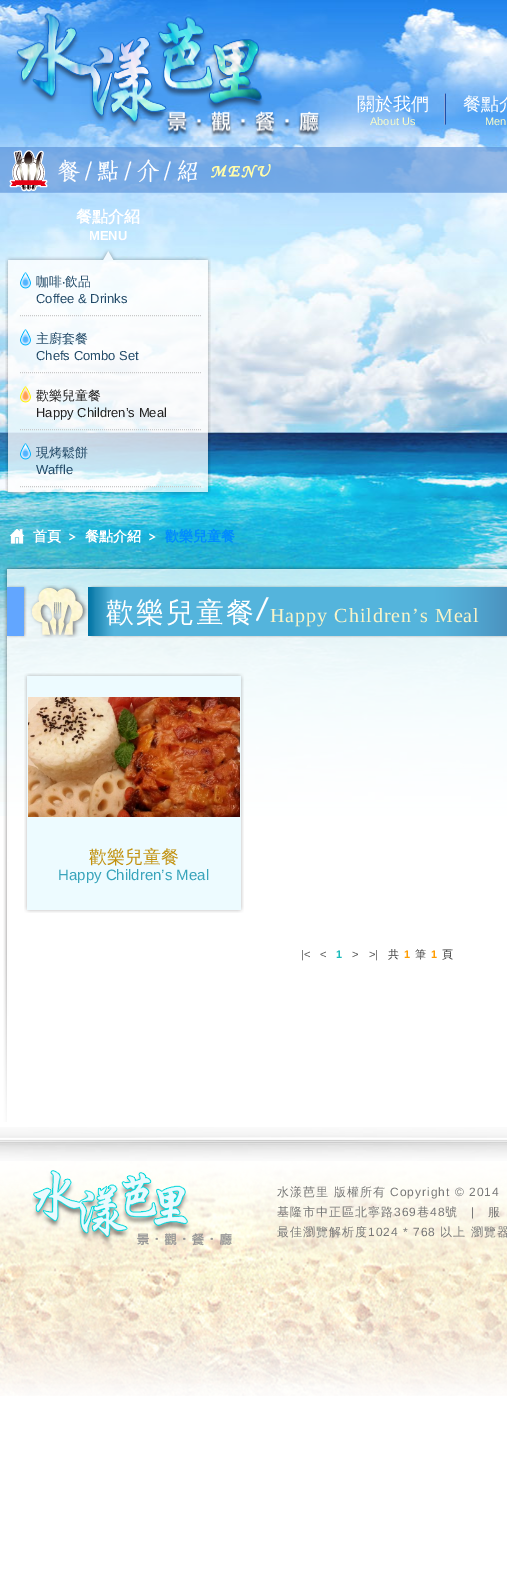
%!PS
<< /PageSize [507 1587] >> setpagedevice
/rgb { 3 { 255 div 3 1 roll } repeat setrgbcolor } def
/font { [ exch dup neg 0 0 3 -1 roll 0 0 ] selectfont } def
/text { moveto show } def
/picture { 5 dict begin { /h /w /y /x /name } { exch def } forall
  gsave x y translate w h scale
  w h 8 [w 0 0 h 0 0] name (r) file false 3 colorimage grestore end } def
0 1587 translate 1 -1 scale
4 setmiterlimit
255 255 255 rgb
0 0 507 1587 rectfill
(img_01.rgb) 0 802 507 14 picture
(img_02.rgb) 0 0 507 802 picture
(img_03.rgb) 15 13 305 123 picture
(img_04.rgb) 444 93 2 32 picture
(img_05.rgb) 0 147 507 46 picture
(img_06.rgb) 5 249 206 13 picture
(img_07.rgb) 5 262 206 57 picture
(img_08.rgb) 20 272 11 17 picture
201 201 201 rgb
[1 1] 0 setdash
20 315.5 moveto 181 0 rlineto stroke
(img_09.rgb) 5 319 206 57 picture
(img_10.rgb) 20 329 11 17 picture
20 372.5 moveto 181 0 rlineto stroke
(img_11.rgb) 5 376 206 57 picture
(img_12.rgb) 20 386 11 17 picture
20 429.5 moveto 181 0 rlineto stroke
(img_13.rgb) 5 433 206 57 picture
(img_14.rgb) 20 443 11 17 picture
20 486.5 moveto 181 0 rlineto stroke
(img_15.rgb) 5 490 206 5 picture
(img_16.rgb) 3 565 504 557 picture
(img_17.rgb) 69 533 7 8 picture
(img_18.rgb) 10 529 15 15 picture
(img_19.rgb) 149 533 7 8 picture
(img_20.rgb) 7 585 500 53 picture
(img_21.rgb) 256 597 13 25 picture
(img_22.rgb) 24 673 220 240 picture
(img_23.rgb) 28 697 212 120 picture
(img_24.rgb) 0 1161 507 235 picture
(img_25.rgb) 0 1127 507 34 picture
(img_26.rgb) 32 1170 200 76 picture
/WenQuanYiZenHei-Medium 18 font
255 255 255 rgb
(關於我們) 357 110 text
/LiberationSans-Regular 11 font
252 254 200 rgb
(About Us) 370 125 text
/WenQuanYiZenHei-Medium 18 font
255 255 255 rgb
(餐點介) 463 110 text
/LiberationSans-Regular 11 font
252 254 200 rgb
(Men) 485 125 text
/WenQuanYiZenHei-Bold 16 font
255 255 255 rgb
(餐點介紹) 76 222 text
/LiberationSans-Bold 13 font
(MENU) 89 240 text
/WenQuanYiZenHei-Medium 13 font
34 74 104 rgb
(咖啡) 36 286 text
/NotoSans-Regular 13 font
(‧) 62 286 text
/WenQuanYiZenHei-Medium 13 font
(飲品) 65 286 text
/LiberationSans-Regular 13 font
(Coffee & Drinks) 36 303 text
/WenQuanYiZenHei-Medium 13 font
(主廚套餐) 36 343 text
/LiberationSans-Regular 13 font
(Chefs Combo Set) 36 360 text
/WenQuanYiZenHei-Medium 13 font
33 33 33 rgb
(歡樂兒童餐) 36 400 text
/LiberationSans-Regular 13 font
(Happy Children’s Meal) 36 417 text
/WenQuanYiZenHei-Medium 13 font
34 74 104 rgb
(現烤鬆餅) 36 457 text
/LiberationSans-Regular 13 font
(Waffle) 36 474 text
/WenQuanYiZenHei-Bold 14 font
255 255 255 rgb
(首頁) 33 541 text
(餐點介紹) 85 541 text
0 138 255 rgb
(歡樂兒童餐) 165 541 text
/WenQuanYiZenHei-Medium 28 font
255 255 255 rgb
106 622 moveto 2 0 (歡樂兒童餐) ashow
/LiberationSerif-Regular 20 font
248 244 201 rgb
270 622 moveto 1 0 (Happy Children’s Meal) ashow
/WenQuanYiZenHei-Medium 18 font
194 145 13 rgb
(歡樂兒童餐) 89 863 text
/LiberationSans-Regular 15 font
56 164 187 rgb
(Happy Children’s Meal) 58 880 text
/LiberationSans-Regular 11 font
82 82 82 rgb
(|<) 301 958 text
(<) 320 958 text
/LiberationSans-Bold 11 font
25 187 187 rgb
(1) 336 958 text
/LiberationSans-Regular 11 font
82 82 82 rgb
(>) 352 958 text
(>|) 369 958 text
/WenQuanYiZenHei-Medium 11 font
49 49 49 rgb
(共) 388 958 text
/LiberationSans-Bold 11 font
255 156 0 rgb
(1) 404 958 text
/WenQuanYiZenHei-Medium 11 font
49 49 49 rgb
(筆) 415 958 text
/LiberationSans-Bold 11 font
255 156 0 rgb
(1) 431 958 text
/WenQuanYiZenHei-Medium 11 font
49 49 49 rgb
(頁) 442 958 text
/WenQuanYiZenHei-Medium 12 font
120 120 120 rgb
277 1196 moveto 1 0 (水漾芭里 版權所有) ashow
/LiberationSans-Regular 12 font
390 1196 moveto 1 0 (Copyright © 2014) ashow
/WenQuanYiZenHei-Medium 12 font
277 1216 moveto 1 0 (基隆市中正區北寧路) ashow
/LiberationSans-Regular 12 font
394 1216 moveto 1 0 (369) ashow
/WenQuanYiZenHei-Medium 12 font
417 1216 moveto 1 0 (巷) ashow
/LiberationSans-Regular 12 font
430 1216 moveto 1 0 (48) ashow
/WenQuanYiZenHei-Medium 12 font
445 1216 moveto 1 0 (號) ashow
/LiberationSans-Regular 12 font
471 1216 moveto 1 0 (|) ashow
/WenQuanYiZenHei-Medium 12 font
488 1216 moveto 1 0 (服) ashow
277 1236 moveto 1 0 (最佳瀏覽解析度) ashow
/LiberationSans-Regular 12 font
368 1236 moveto 1 0 (1024 * 768) ashow
/WenQuanYiZenHei-Medium 12 font
440 1236 moveto 1 0 (以上 瀏覽器) ashow
showpage
